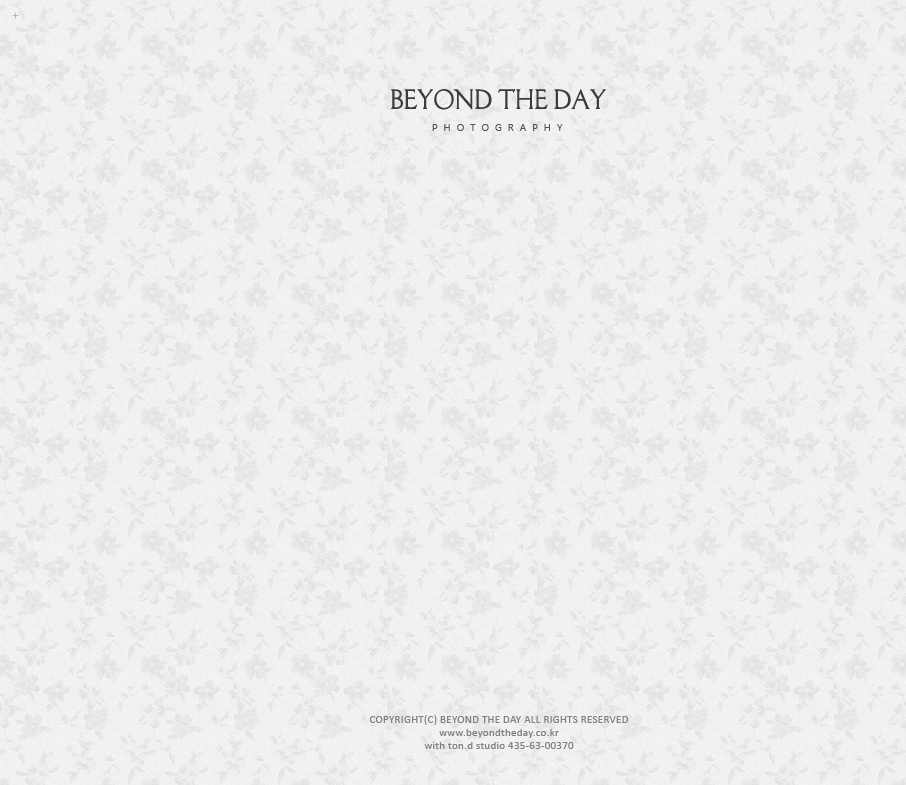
%!PS
<< /PageSize [906 785] >> setpagedevice
/rgb { 3 { 255 div 3 1 roll } repeat setrgbcolor } def
/picture { 5 dict begin { /h /w /y /x /name } { exch def } forall
  gsave x y translate w h scale
  w h 8 [w 0 0 h 0 0] name (r) file false 3 colorimage grestore end } def
0 785 translate 1 -1 scale
4 setmiterlimit
255 255 255 rgb
0 0 906 785 rectfill
(img_01.rgb) 0 0 906 785 picture
(img_02.rgb) 12 12 7 7 picture
(img_03.rgb) 391 89 215 42 picture
(img_04.rgb) 369 715 260 34 picture
showpage
